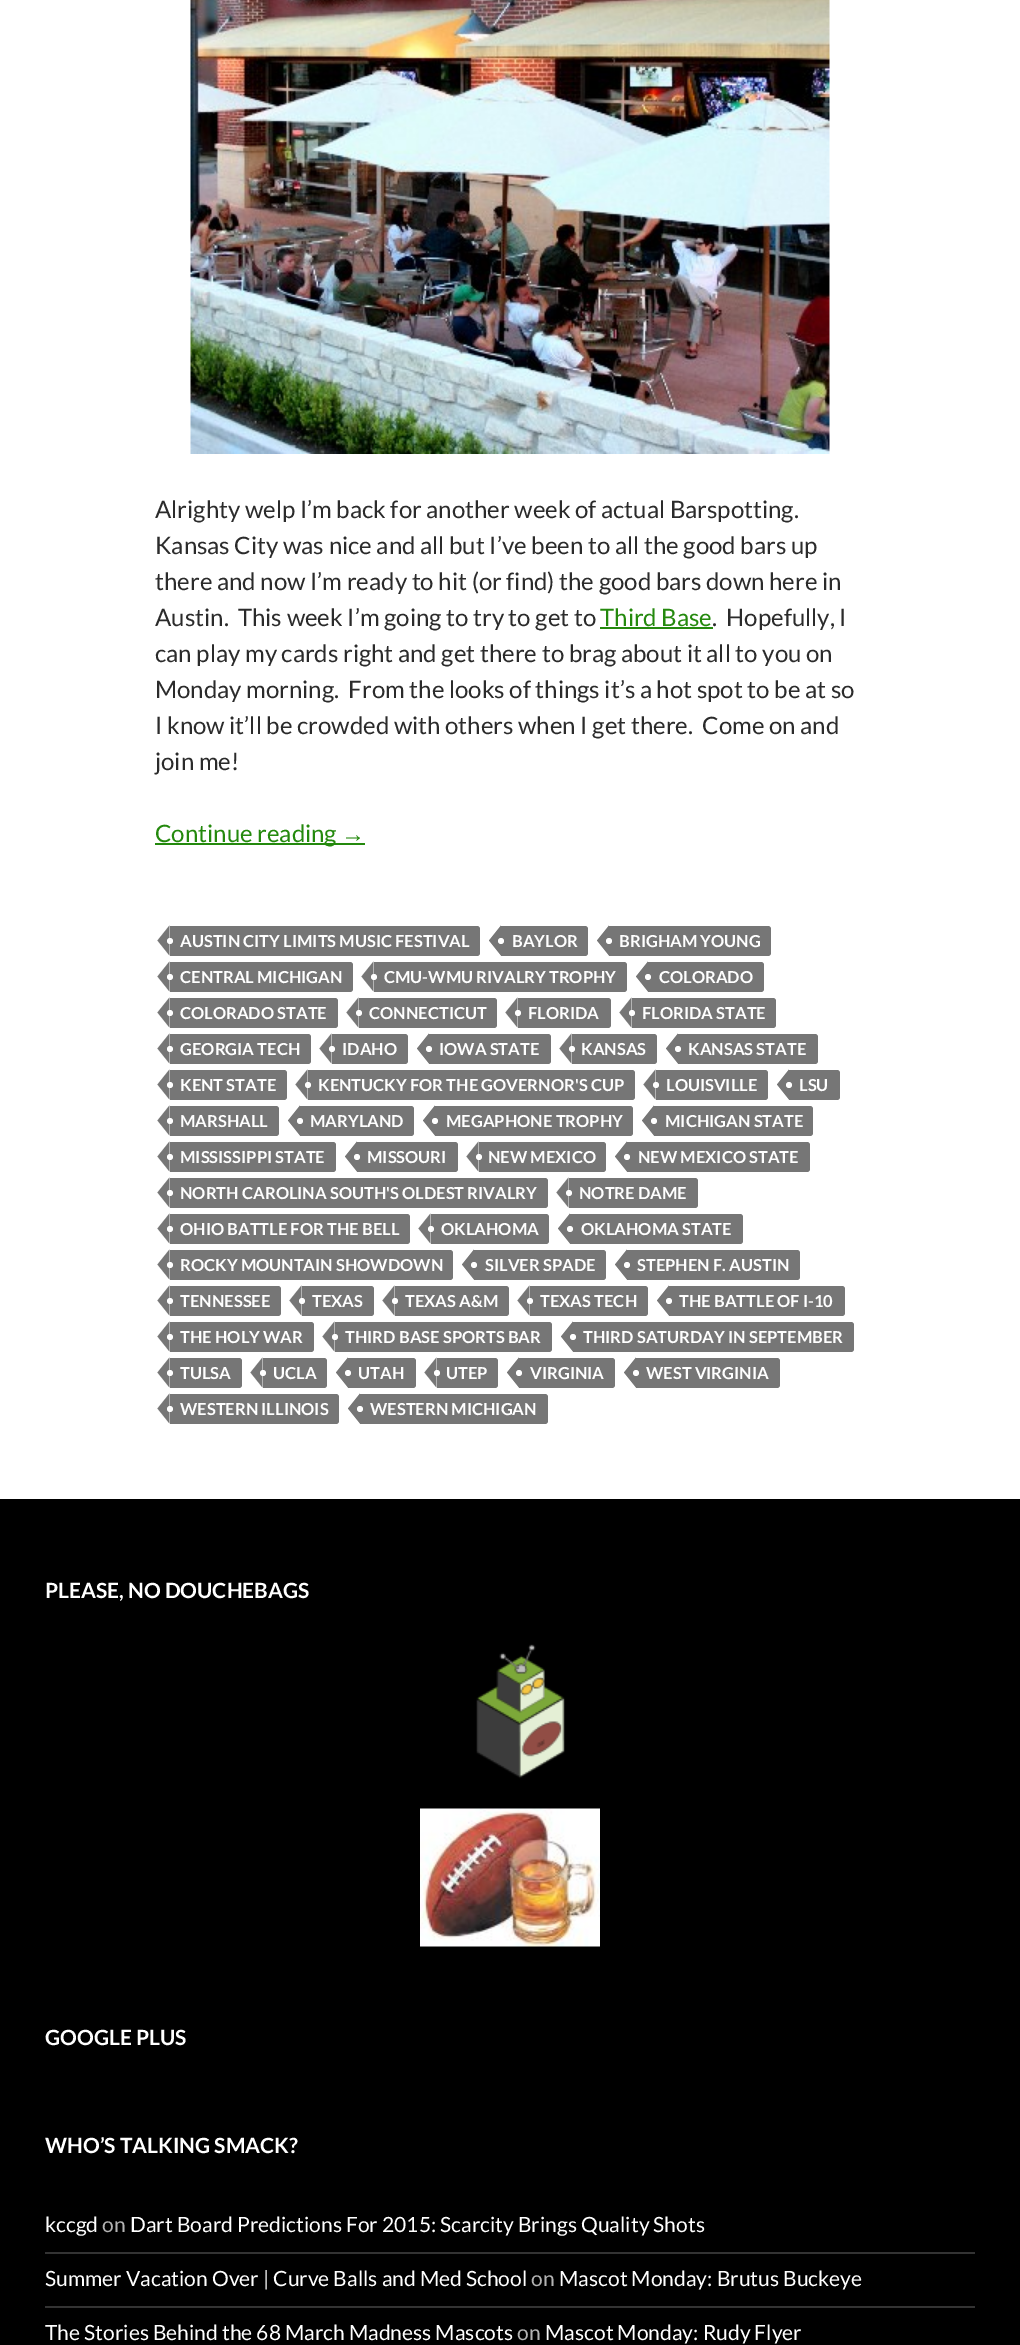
%!PS
<< /PageSize [1020 2345] >> setpagedevice
/rgb { 3 { 255 div 3 1 roll } repeat setrgbcolor } def
/font { [ exch dup neg 0 0 3 -1 roll 0 0 ] selectfont } def
/text { moveto show } def
/circle { newpath 0 360 arc closepath } def
/picture { 5 dict begin { /h /w /y /x /name } { exch def } forall
  gsave x y translate w h scale
  w h 8 [w 0 0 h 0 0] name (r) file false 3 colorimage grestore end } def
0 2345 translate 1 -1 scale
4 setmiterlimit
255 255 255 rgb
0 0 1020 2345 rectfill
(img_01.rgb) 190 0 640 454 picture
36 137 13 rgb
600 627 113 2 rectfill
155 843 210 2 rectfill
118 118 118 rgb
170 926 moveto 307 0 rlineto 1.5 0 3 1.5 3 3 rcurveto 0 24 rlineto 0 1.5 -1.5 3 -3 3 rcurveto -307 0 rlineto closepath fill
169.5 925.5 moveto 0 30 rlineto -12 -15 rlineto closepath fill
255 255 255 rgb
170 941 3 circle fill
118 118 118 rgb
501 926 moveto 84 0 rlineto 1.5 0 3 1.5 3 3 rcurveto 0 24 rlineto 0 1.5 -1.5 3 -3 3 rcurveto -84 0 rlineto closepath fill
501 925.5 moveto 0 30 rlineto -12 -15 rlineto closepath fill
255 255 255 rgb
501 941 3 circle fill
118 118 118 rgb
609 926 moveto 159 0 rlineto 1.5 0 3 1.5 3 3 rcurveto 0 24 rlineto 0 1.5 -1.5 3 -3 3 rcurveto -159 0 rlineto closepath fill
609 925.5 moveto 0 30 rlineto -12 -15 rlineto closepath fill
255 255 255 rgb
609 941 3 circle fill
118 118 118 rgb
170 962 moveto 180 0 rlineto 1.5 0 3 1.5 3 3 rcurveto 0 24 rlineto 0 1.5 -1.5 3 -3 3 rcurveto -180 0 rlineto closepath fill
169.5 961.5 moveto 0 30 rlineto -12 -15 rlineto closepath fill
255 255 255 rgb
170 977 3 circle fill
118 118 118 rgb
374 962 moveto 250 0 rlineto 1.5 0 3 1.5 3 3 rcurveto 0 24 rlineto 0 1.5 -1.5 3 -3 3 rcurveto -250 0 rlineto closepath fill
373.5 961.5 moveto 0 30 rlineto -12 -15 rlineto closepath fill
255 255 255 rgb
374 977 3 circle fill
118 118 118 rgb
648 962 moveto 113 0 rlineto 1.5 0 3 1.5 3 3 rcurveto 0 24 rlineto 0 1.5 -1.5 3 -3 3 rcurveto -113 0 rlineto closepath fill
648 961.5 moveto 0 30 rlineto -12 -15 rlineto closepath fill
255 255 255 rgb
648 977 3 circle fill
118 118 118 rgb
170 998 moveto 165 0 rlineto 1.5 0 3 1.5 3 3 rcurveto 0 24 rlineto 0 1.5 -1.5 3 -3 3 rcurveto -165 0 rlineto closepath fill
169.5 997.5 moveto 0 30 rlineto -12 -15 rlineto closepath fill
255 255 255 rgb
170 1013 3 circle fill
118 118 118 rgb
359 998 moveto 135 0 rlineto 1.5 0 3 1.5 3 3 rcurveto 0 24 rlineto 0 1.5 -1.5 3 -3 3 rcurveto -135 0 rlineto closepath fill
358.5 997.5 moveto 0 30 rlineto -12 -15 rlineto closepath fill
255 255 255 rgb
359 1013 3 circle fill
118 118 118 rgb
518 998 moveto 90 0 rlineto 1.5 0 3 1.5 3 3 rcurveto 0 24 rlineto 0 1.5 -1.5 3 -3 3 rcurveto -90 0 rlineto closepath fill
517.5 997.5 moveto 0 30 rlineto -12 -15 rlineto closepath fill
255 255 255 rgb
518 1013 3 circle fill
118 118 118 rgb
632 998 moveto 141 0 rlineto 1.5 0 3 1.5 3 3 rcurveto 0 24 rlineto 0 1.5 -1.5 3 -3 3 rcurveto -141 0 rlineto closepath fill
631.5 997.5 moveto 0 30 rlineto -12 -15 rlineto closepath fill
255 255 255 rgb
632 1013 3 circle fill
118 118 118 rgb
170 1034 moveto 138 0 rlineto 1.5 0 3 1.5 3 3 rcurveto 0 24 rlineto 0 1.5 -1.5 3 -3 3 rcurveto -138 0 rlineto closepath fill
169.5 1033.5 moveto 0 30 rlineto -12 -15 rlineto closepath fill
255 255 255 rgb
170 1049 3 circle fill
118 118 118 rgb
332 1034 moveto 73 0 rlineto 1.5 0 3 1.5 3 3 rcurveto 0 24 rlineto 0 1.5 -1.5 3 -3 3 rcurveto -73 0 rlineto closepath fill
331.5 1033.5 moveto 0 30 rlineto -12 -15 rlineto closepath fill
255 255 255 rgb
332 1049 3 circle fill
118 118 118 rgb
429 1034 moveto 119 0 rlineto 1.5 0 3 1.5 3 3 rcurveto 0 24 rlineto 0 1.5 -1.5 3 -3 3 rcurveto -119 0 rlineto closepath fill
429 1033.5 moveto 0 30 rlineto -12 -15 rlineto closepath fill
255 255 255 rgb
429 1049 3 circle fill
118 118 118 rgb
572 1034 moveto 82 0 rlineto 1.5 0 3 1.5 3 3 rcurveto 0 24 rlineto 0 1.5 -1.5 3 -3 3 rcurveto -82 0 rlineto closepath fill
571.5 1033.5 moveto 0 30 rlineto -12 -15 rlineto closepath fill
255 255 255 rgb
572 1049 3 circle fill
118 118 118 rgb
678 1034 moveto 137 0 rlineto 1.5 0 3 1.5 3 3 rcurveto 0 24 rlineto 0 1.5 -1.5 3 -3 3 rcurveto -137 0 rlineto closepath fill
678 1033.5 moveto 0 30 rlineto -12 -15 rlineto closepath fill
255 255 255 rgb
678 1049 3 circle fill
118 118 118 rgb
170 1070 moveto 114 0 rlineto 1.5 0 3 1.5 3 3 rcurveto 0 24 rlineto 0 1.5 -1.5 3 -3 3 rcurveto -114 0 rlineto closepath fill
169.5 1069.5 moveto 0 30 rlineto -12 -15 rlineto closepath fill
255 255 255 rgb
170 1085 3 circle fill
118 118 118 rgb
308 1070 moveto 324 0 rlineto 1.5 0 3 1.5 3 3 rcurveto 0 24 rlineto 0 1.5 -1.5 3 -3 3 rcurveto -324 0 rlineto closepath fill
307.5 1069.5 moveto 0 30 rlineto -12 -15 rlineto closepath fill
255 255 255 rgb
308 1085 3 circle fill
118 118 118 rgb
656 1070 moveto 109 0 rlineto 1.5 0 3 1.5 3 3 rcurveto 0 24 rlineto 0 1.5 -1.5 3 -3 3 rcurveto -109 0 rlineto closepath fill
655.5 1069.5 moveto 0 30 rlineto -12 -15 rlineto closepath fill
255 255 255 rgb
656 1085 3 circle fill
118 118 118 rgb
789 1070 moveto 48 0 rlineto 1.5 0 3 1.5 3 3 rcurveto 0 24 rlineto 0 1.5 -1.5 3 -3 3 rcurveto -48 0 rlineto closepath fill
789 1069.5 moveto 0 30 rlineto -12 -15 rlineto closepath fill
255 255 255 rgb
789 1085 3 circle fill
118 118 118 rgb
170 1106 moveto 106 0 rlineto 1.5 0 3 1.5 3 3 rcurveto 0 24 rlineto 0 1.5 -1.5 3 -3 3 rcurveto -106 0 rlineto closepath fill
169.5 1105.5 moveto 0 30 rlineto -12 -15 rlineto closepath fill
255 255 255 rgb
170 1121 3 circle fill
118 118 118 rgb
300 1106 moveto 111 0 rlineto 1.5 0 3 1.5 3 3 rcurveto 0 24 rlineto 0 1.5 -1.5 3 -3 3 rcurveto -111 0 rlineto closepath fill
300 1105.5 moveto 0 30 rlineto -12 -15 rlineto closepath fill
255 255 255 rgb
300 1121 3 circle fill
118 118 118 rgb
435 1106 moveto 195 0 rlineto 1.5 0 3 1.5 3 3 rcurveto 0 24 rlineto 0 1.5 -1.5 3 -3 3 rcurveto -195 0 rlineto closepath fill
435 1105.5 moveto 0 30 rlineto -12 -15 rlineto closepath fill
255 255 255 rgb
435 1121 3 circle fill
118 118 118 rgb
654 1106 moveto 156 0 rlineto 1.5 0 3 1.5 3 3 rcurveto 0 24 rlineto 0 1.5 -1.5 3 -3 3 rcurveto -156 0 rlineto closepath fill
654 1105.5 moveto 0 30 rlineto -12 -15 rlineto closepath fill
255 255 255 rgb
654 1121 3 circle fill
118 118 118 rgb
170 1142 moveto 163 0 rlineto 1.5 0 3 1.5 3 3 rcurveto 0 24 rlineto 0 1.5 -1.5 3 -3 3 rcurveto -163 0 rlineto closepath fill
169.5 1141.5 moveto 0 30 rlineto -12 -15 rlineto closepath fill
255 255 255 rgb
170 1157 3 circle fill
118 118 118 rgb
357 1142 moveto 98 0 rlineto 1.5 0 3 1.5 3 3 rcurveto 0 24 rlineto 0 1.5 -1.5 3 -3 3 rcurveto -98 0 rlineto closepath fill
357 1141.5 moveto 0 30 rlineto -12 -15 rlineto closepath fill
255 255 255 rgb
357 1157 3 circle fill
118 118 118 rgb
479 1142 moveto 124 0 rlineto 1.5 0 3 1.5 3 3 rcurveto 0 24 rlineto 0 1.5 -1.5 3 -3 3 rcurveto -124 0 rlineto closepath fill
478.5 1141.5 moveto 0 30 rlineto -12 -15 rlineto closepath fill
255 255 255 rgb
479 1157 3 circle fill
118 118 118 rgb
627 1142 moveto 180 0 rlineto 1.5 0 3 1.5 3 3 rcurveto 0 24 rlineto 0 1.5 -1.5 3 -3 3 rcurveto -180 0 rlineto closepath fill
627 1141.5 moveto 0 30 rlineto -12 -15 rlineto closepath fill
255 255 255 rgb
627 1157 3 circle fill
118 118 118 rgb
170 1178 moveto 375 0 rlineto 1.5 0 3 1.5 3 3 rcurveto 0 24 rlineto 0 1.5 -1.5 3 -3 3 rcurveto -375 0 rlineto closepath fill
169.5 1177.5 moveto 0 30 rlineto -12 -15 rlineto closepath fill
255 255 255 rgb
170 1193 3 circle fill
118 118 118 rgb
569 1178 moveto 126 0 rlineto 1.5 0 3 1.5 3 3 rcurveto 0 24 rlineto 0 1.5 -1.5 3 -3 3 rcurveto -126 0 rlineto closepath fill
568.5 1177.5 moveto 0 30 rlineto -12 -15 rlineto closepath fill
255 255 255 rgb
569 1193 3 circle fill
118 118 118 rgb
170 1214 moveto 237 0 rlineto 1.5 0 3 1.5 3 3 rcurveto 0 24 rlineto 0 1.5 -1.5 3 -3 3 rcurveto -237 0 rlineto closepath fill
169.5 1213.5 moveto 0 30 rlineto -12 -15 rlineto closepath fill
255 255 255 rgb
170 1229 3 circle fill
118 118 118 rgb
431 1214 moveto 115 0 rlineto 1.5 0 3 1.5 3 3 rcurveto 0 24 rlineto 0 1.5 -1.5 3 -3 3 rcurveto -115 0 rlineto closepath fill
430.5 1213.5 moveto 0 30 rlineto -12 -15 rlineto closepath fill
255 255 255 rgb
431 1229 3 circle fill
118 118 118 rgb
570 1214 moveto 170 0 rlineto 1.5 0 3 1.5 3 3 rcurveto 0 24 rlineto 0 1.5 -1.5 3 -3 3 rcurveto -170 0 rlineto closepath fill
570 1213.5 moveto 0 30 rlineto -12 -15 rlineto closepath fill
255 255 255 rgb
570 1229 3 circle fill
118 118 118 rgb
170 1250 moveto 280 0 rlineto 1.5 0 3 1.5 3 3 rcurveto 0 24 rlineto 0 1.5 -1.5 3 -3 3 rcurveto -280 0 rlineto closepath fill
169.5 1249.5 moveto 0 30 rlineto -12 -15 rlineto closepath fill
255 255 255 rgb
170 1265 3 circle fill
118 118 118 rgb
474 1250 moveto 129 0 rlineto 1.5 0 3 1.5 3 3 rcurveto 0 24 rlineto 0 1.5 -1.5 3 -3 3 rcurveto -129 0 rlineto closepath fill
474 1249.5 moveto 0 30 rlineto -12 -15 rlineto closepath fill
255 255 255 rgb
474 1265 3 circle fill
118 118 118 rgb
627 1250 moveto 170 0 rlineto 1.5 0 3 1.5 3 3 rcurveto 0 24 rlineto 0 1.5 -1.5 3 -3 3 rcurveto -170 0 rlineto closepath fill
627 1249.5 moveto 0 30 rlineto -12 -15 rlineto closepath fill
255 255 255 rgb
627 1265 3 circle fill
118 118 118 rgb
170 1286 moveto 108 0 rlineto 1.5 0 3 1.5 3 3 rcurveto 0 24 rlineto 0 1.5 -1.5 3 -3 3 rcurveto -108 0 rlineto closepath fill
169.5 1285.5 moveto 0 30 rlineto -12 -15 rlineto closepath fill
255 255 255 rgb
170 1301 3 circle fill
118 118 118 rgb
302 1286 moveto 69 0 rlineto 1.5 0 3 1.5 3 3 rcurveto 0 24 rlineto 0 1.5 -1.5 3 -3 3 rcurveto -69 0 rlineto closepath fill
301.5 1285.5 moveto 0 30 rlineto -12 -15 rlineto closepath fill
255 255 255 rgb
302 1301 3 circle fill
118 118 118 rgb
395 1286 moveto 111 0 rlineto 1.5 0 3 1.5 3 3 rcurveto 0 24 rlineto 0 1.5 -1.5 3 -3 3 rcurveto -111 0 rlineto closepath fill
394.5 1285.5 moveto 0 30 rlineto -12 -15 rlineto closepath fill
255 255 255 rgb
395 1301 3 circle fill
118 118 118 rgb
530 1286 moveto 115 0 rlineto 1.5 0 3 1.5 3 3 rcurveto 0 24 rlineto 0 1.5 -1.5 3 -3 3 rcurveto -115 0 rlineto closepath fill
529.5 1285.5 moveto 0 30 rlineto -12 -15 rlineto closepath fill
255 255 255 rgb
530 1301 3 circle fill
118 118 118 rgb
669 1286 moveto 173 0 rlineto 1.5 0 3 1.5 3 3 rcurveto 0 24 rlineto 0 1.5 -1.5 3 -3 3 rcurveto -173 0 rlineto closepath fill
669 1285.5 moveto 0 30 rlineto -12 -15 rlineto closepath fill
255 255 255 rgb
669 1301 3 circle fill
118 118 118 rgb
170 1322 moveto 141 0 rlineto 1.5 0 3 1.5 3 3 rcurveto 0 24 rlineto 0 1.5 -1.5 3 -3 3 rcurveto -141 0 rlineto closepath fill
169.5 1321.5 moveto 0 30 rlineto -12 -15 rlineto closepath fill
255 255 255 rgb
170 1337 3 circle fill
118 118 118 rgb
335 1322 moveto 214 0 rlineto 1.5 0 3 1.5 3 3 rcurveto 0 24 rlineto 0 1.5 -1.5 3 -3 3 rcurveto -214 0 rlineto closepath fill
334.5 1321.5 moveto 0 30 rlineto -12 -15 rlineto closepath fill
255 255 255 rgb
335 1337 3 circle fill
118 118 118 rgb
573 1322 moveto 278 0 rlineto 1.5 0 3 1.5 3 3 rcurveto 0 24 rlineto 0 1.5 -1.5 3 -3 3 rcurveto -278 0 rlineto closepath fill
573 1321.5 moveto 0 30 rlineto -12 -15 rlineto closepath fill
255 255 255 rgb
573 1337 3 circle fill
118 118 118 rgb
170 1358 moveto 69 0 rlineto 1.5 0 3 1.5 3 3 rcurveto 0 24 rlineto 0 1.5 -1.5 3 -3 3 rcurveto -69 0 rlineto closepath fill
169.5 1357.5 moveto 0 30 rlineto -12 -15 rlineto closepath fill
255 255 255 rgb
170 1373 3 circle fill
118 118 118 rgb
263 1358 moveto 61 0 rlineto 1.5 0 3 1.5 3 3 rcurveto 0 24 rlineto 0 1.5 -1.5 3 -3 3 rcurveto -61 0 rlineto closepath fill
262.5 1357.5 moveto 0 30 rlineto -12 -15 rlineto closepath fill
255 255 255 rgb
263 1373 3 circle fill
118 118 118 rgb
348 1358 moveto 65 0 rlineto 1.5 0 3 1.5 3 3 rcurveto 0 24 rlineto 0 1.5 -1.5 3 -3 3 rcurveto -65 0 rlineto closepath fill
348 1357.5 moveto 0 30 rlineto -12 -15 rlineto closepath fill
255 255 255 rgb
348 1373 3 circle fill
118 118 118 rgb
437 1358 moveto 58 0 rlineto 1.5 0 3 1.5 3 3 rcurveto 0 24 rlineto 0 1.5 -1.5 3 -3 3 rcurveto -58 0 rlineto closepath fill
436.5 1357.5 moveto 0 30 rlineto -12 -15 rlineto closepath fill
255 255 255 rgb
437 1373 3 circle fill
118 118 118 rgb
519 1358 moveto 93 0 rlineto 1.5 0 3 1.5 3 3 rcurveto 0 24 rlineto 0 1.5 -1.5 3 -3 3 rcurveto -93 0 rlineto closepath fill
519 1357.5 moveto 0 30 rlineto -12 -15 rlineto closepath fill
255 255 255 rgb
519 1373 3 circle fill
118 118 118 rgb
636 1358 moveto 141 0 rlineto 1.5 0 3 1.5 3 3 rcurveto 0 24 rlineto 0 1.5 -1.5 3 -3 3 rcurveto -141 0 rlineto closepath fill
636 1357.5 moveto 0 30 rlineto -12 -15 rlineto closepath fill
255 255 255 rgb
636 1373 3 circle fill
118 118 118 rgb
170 1394 moveto 166 0 rlineto 1.5 0 3 1.5 3 3 rcurveto 0 24 rlineto 0 1.5 -1.5 3 -3 3 rcurveto -166 0 rlineto closepath fill
169.5 1393.5 moveto 0 30 rlineto -12 -15 rlineto closepath fill
255 255 255 rgb
170 1409 3 circle fill
118 118 118 rgb
360 1394 moveto 185 0 rlineto 1.5 0 3 1.5 3 3 rcurveto 0 24 rlineto 0 1.5 -1.5 3 -3 3 rcurveto -185 0 rlineto closepath fill
360 1393.5 moveto 0 30 rlineto -12 -15 rlineto closepath fill
255 255 255 rgb
360 1409 3 circle fill
0 0 0 rgb
0 1499 1020 846 rectfill
(img_02.rgb) 476 1644 89 135 picture
(img_03.rgb) 420 1808 180 139 picture
51 51 51 rgb
45 2252 930 2 rectfill
45 2306 930 2 rectfill
/Lato-Regular 24 font
43 43 43 rgb
(Alrighty welp I’m back for another week of actual Barspotting.) 155 518 text
(Kansas City was nice and all but I’ve been to all the good bars up) 155 554 text
(there and now I’m ready to hit \(or find\) the good bars down here in) 155 590 text
(Austin.  This week I’m going to try to get to) 155 626 text
36 137 13 rgb
(Third Base) 600 626 text
43 43 43 rgb
(.  Hopefully, I) 712 626 text
(can play my cards right and get there to brag about it all to you on) 155 662 text
(Monday morning.  From the looks of things it’s a hot spot to be at so) 155 698 text
(I know it’ll be crowded with others when I get there.  Come on and) 155 734 text
(join me!) 155 770 text
36 137 13 rgb
(Continue reading) 155 842 text
/LiberationSans-Regular 24 font
(→) 341 842 text
/Lato-Bold 16.5 font
255 255 255 rgb
(AUSTIN CITY LIMITS MUSIC FESTIVAL) 180 947 text
(BAYLOR) 512 947 text
(BRIGHAM YOUNG) 619 947 text
(CENTRAL MICHIGAN) 180 983 text
(CMU-WMU RIVALRY TROPHY) 384 983 text
(COLORADO) 659 983 text
(COLORADO STATE) 180 1019 text
(CONNECTICUT) 369 1019 text
(FLORIDA) 528 1019 text
(FLORIDA STATE) 642 1019 text
(GEORGIA TECH) 180 1055 text
(IDAHO) 342 1055 text
(IOWA STATE) 439 1055 text
(KANSAS) 581 1055 text
(KANSAS STATE) 688 1055 text
(KENT STATE) 180 1091 text
(KENTUCKY FOR THE GOVERNOR'S CUP) 318 1091 text
(LOUISVILLE) 666 1091 text
(LSU) 799 1091 text
(MARSHALL) 180 1127 text
(MARYLAND) 310 1127 text
(MEGAPHONE TROPHY) 446 1127 text
(MICHIGAN STATE) 665 1127 text
(MISSISSIPPI STATE) 180 1163 text
(MISSOURI) 367 1163 text
(NEW MEXICO) 488 1163 text
(NEW MEXICO STATE) 638 1163 text
(NORTH CAROLINA SOUTH'S OLDEST RIVALRY) 180 1199 text
(NOTRE DAME) 579 1199 text
(OHIO BATTLE FOR THE BELL) 180 1235 text
(OKLAHOMA) 441 1235 text
(OKLAHOMA STATE) 581 1235 text
(ROCKY MOUNTAIN SHOWDOWN) 180 1271 text
(SILVER SPADE) 485 1271 text
(STEPHEN F. AUSTIN) 637 1271 text
(TENNESSEE) 180 1307 text
(TEXAS) 312 1307 text
(TEXAS A&M) 405 1307 text
(TEXAS TECH) 540 1307 text
(THE BATTLE OF I-10) 679 1307 text
(THE HOLY WAR) 180 1343 text
(THIRD BASE SPORTS BAR) 345 1343 text
(THIRD SATURDAY IN SEPTEMBER) 583 1343 text
(TULSA) 180 1379 text
(UCLA) 273 1379 text
(UTAH) 358 1379 text
(UTEP) 446 1379 text
(VIRGINIA) 530 1379 text
(WEST VIRGINIA) 646 1379 text
(WESTERN ILLINOIS) 180 1415 text
(WESTERN MICHIGAN) 370 1415 text
/Lato-Bold 21 font
(PLEASE, NO DOUCHEBAGS) 45 1598 text
(GOOGLE PLUS) 45 2045 text
(WHO’S TALKING SMACK?) 45 2153 text
/Lato-Regular 21 font
(kccgd) 45 2232 text
179 179 179 rgb
(on) 102 2232 text
255 255 255 rgb
(Dart Board Predictions For 2015: Scarcity Brings Quality Shots) 130 2232 text
(Summer Vacation Over | Curve Balls and Med School) 45 2286 text
179 179 179 rgb
(on) 531 2286 text
255 255 255 rgb
(Mascot Monday: Brutus Buckeye) 559 2286 text
(The Stories Behind the 68 March Madness Mascots) 45 2340 text
179 179 179 rgb
(on) 517 2340 text
255 255 255 rgb
(Mascot Monday: Rudy Flyer) 545 2340 text
showpage
